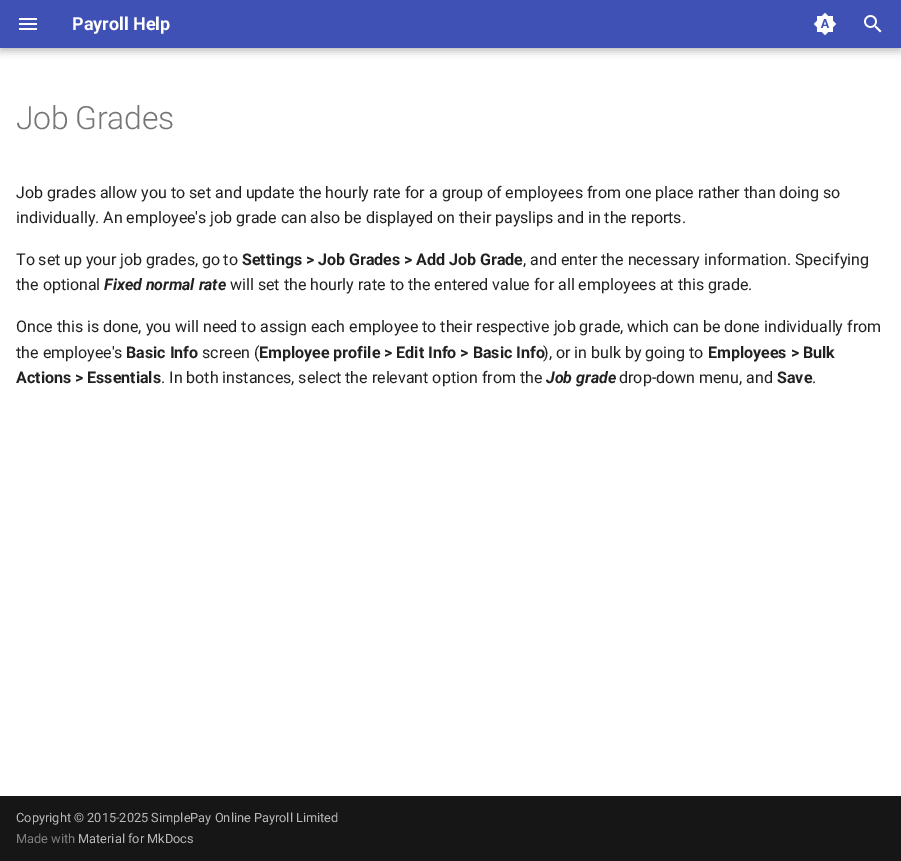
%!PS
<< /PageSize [901 861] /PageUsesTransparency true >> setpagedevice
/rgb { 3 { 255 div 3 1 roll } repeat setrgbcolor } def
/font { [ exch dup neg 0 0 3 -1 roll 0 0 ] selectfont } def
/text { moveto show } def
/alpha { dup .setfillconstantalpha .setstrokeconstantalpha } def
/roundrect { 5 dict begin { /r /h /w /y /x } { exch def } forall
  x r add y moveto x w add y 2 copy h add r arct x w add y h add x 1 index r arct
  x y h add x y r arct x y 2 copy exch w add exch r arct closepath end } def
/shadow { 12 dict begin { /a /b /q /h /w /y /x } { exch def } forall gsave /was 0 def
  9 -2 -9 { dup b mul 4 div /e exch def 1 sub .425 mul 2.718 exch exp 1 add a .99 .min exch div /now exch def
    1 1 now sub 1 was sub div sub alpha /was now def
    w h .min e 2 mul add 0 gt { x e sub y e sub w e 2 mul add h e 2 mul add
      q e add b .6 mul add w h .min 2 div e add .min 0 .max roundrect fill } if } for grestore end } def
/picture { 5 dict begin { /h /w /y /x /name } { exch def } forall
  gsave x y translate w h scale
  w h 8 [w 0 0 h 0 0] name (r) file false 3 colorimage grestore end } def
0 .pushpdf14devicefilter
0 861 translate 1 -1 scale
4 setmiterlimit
255 255 255 rgb
0 0 901 861 rectfill
0 0 0 rgb
0 4 901 48 0 4 0.2 shadow
0 0 901 48 0 2 0.1 shadow
64 81 181 rgb
0 0 901 48 rectfill
(img_01.rgb) 19 18 18 12 picture
(img_02.rgb) 813 12 24 24 picture
(img_03.rgb) 864 15 18 18 picture
22 22 22 rgb
0 796 901 65 rectfill
/Roboto-Bold 18 font
255 255 255 rgb
(Payroll Help) 72 30 text
/Roboto-Light 32 font
117 117 117 rgb
16 129 moveto -1 0 32 -0.25 0 (Job Grades) awidthshow
/Roboto-Regular 16 font
33 33 33 rgb
(Job grades allow you to set and update the hourly rate for a group of employees from one place rather than doing so) 16 198 text
16 223 moveto -0.1 0 32 (individually. An employee's job grade can also be displayed on their payslips and in the reports.) widthshow
16 265 moveto -0.25 0 32 (To set up your job grades, go to) widthshow
/Roboto-Bold 16 font
(Settings > Job Grades > Add Job Grade) 242 265 text
/Roboto-Regular 16 font
(, and enter the necessary information. Specifying) 523 265 text
(the optional) 16 290 text
/Roboto-BoldItalic 16 font
(Fixed normal rate) 104 290 text
/Roboto-Regular 16 font
(will set the hourly rate to the entered value for all employees at this grade.) 230 290 text
(Once this is done, you will need to assign each employee to their respective job grade, which can be done individually from) 16 332 text
(the employee's) 16 358 text
/Roboto-Bold 16 font
(Basic Info) 126 358 text
/Roboto-Regular 16 font
(screen \() 202 358 text
/Roboto-Bold 16 font
(Employee profile > Edit Info > Basic Info) 259 358 text
/Roboto-Regular 16 font
(\), or in bulk by going to) 543 358 text
/Roboto-Bold 16 font
(Employees > Bulk) 708 358 text
(Actions > Essentials) 16 383 text
/Roboto-Regular 16 font
(. In both instances, select the relevant option from the) 161 383 text
/Roboto-BoldItalic 16 font
(Job grade) 546 383 text
/Roboto-Regular 16 font
(drop-down menu, and) 619 383 text
/Roboto-Bold 16 font
(Save) 777 383 text
/Roboto-Regular 16 font
(.) 812 383 text
/Roboto-Regular 12.8 font
185 185 185 rgb
(Copyright © 2015-2025 SimplePay Online Payroll Limited) 16 822 text
127 127 127 rgb
(Made with) 16 843 text
185 185 185 rgb
(Material for MkDocs) 78 843 text
.poppdf14devicefilter showpage
